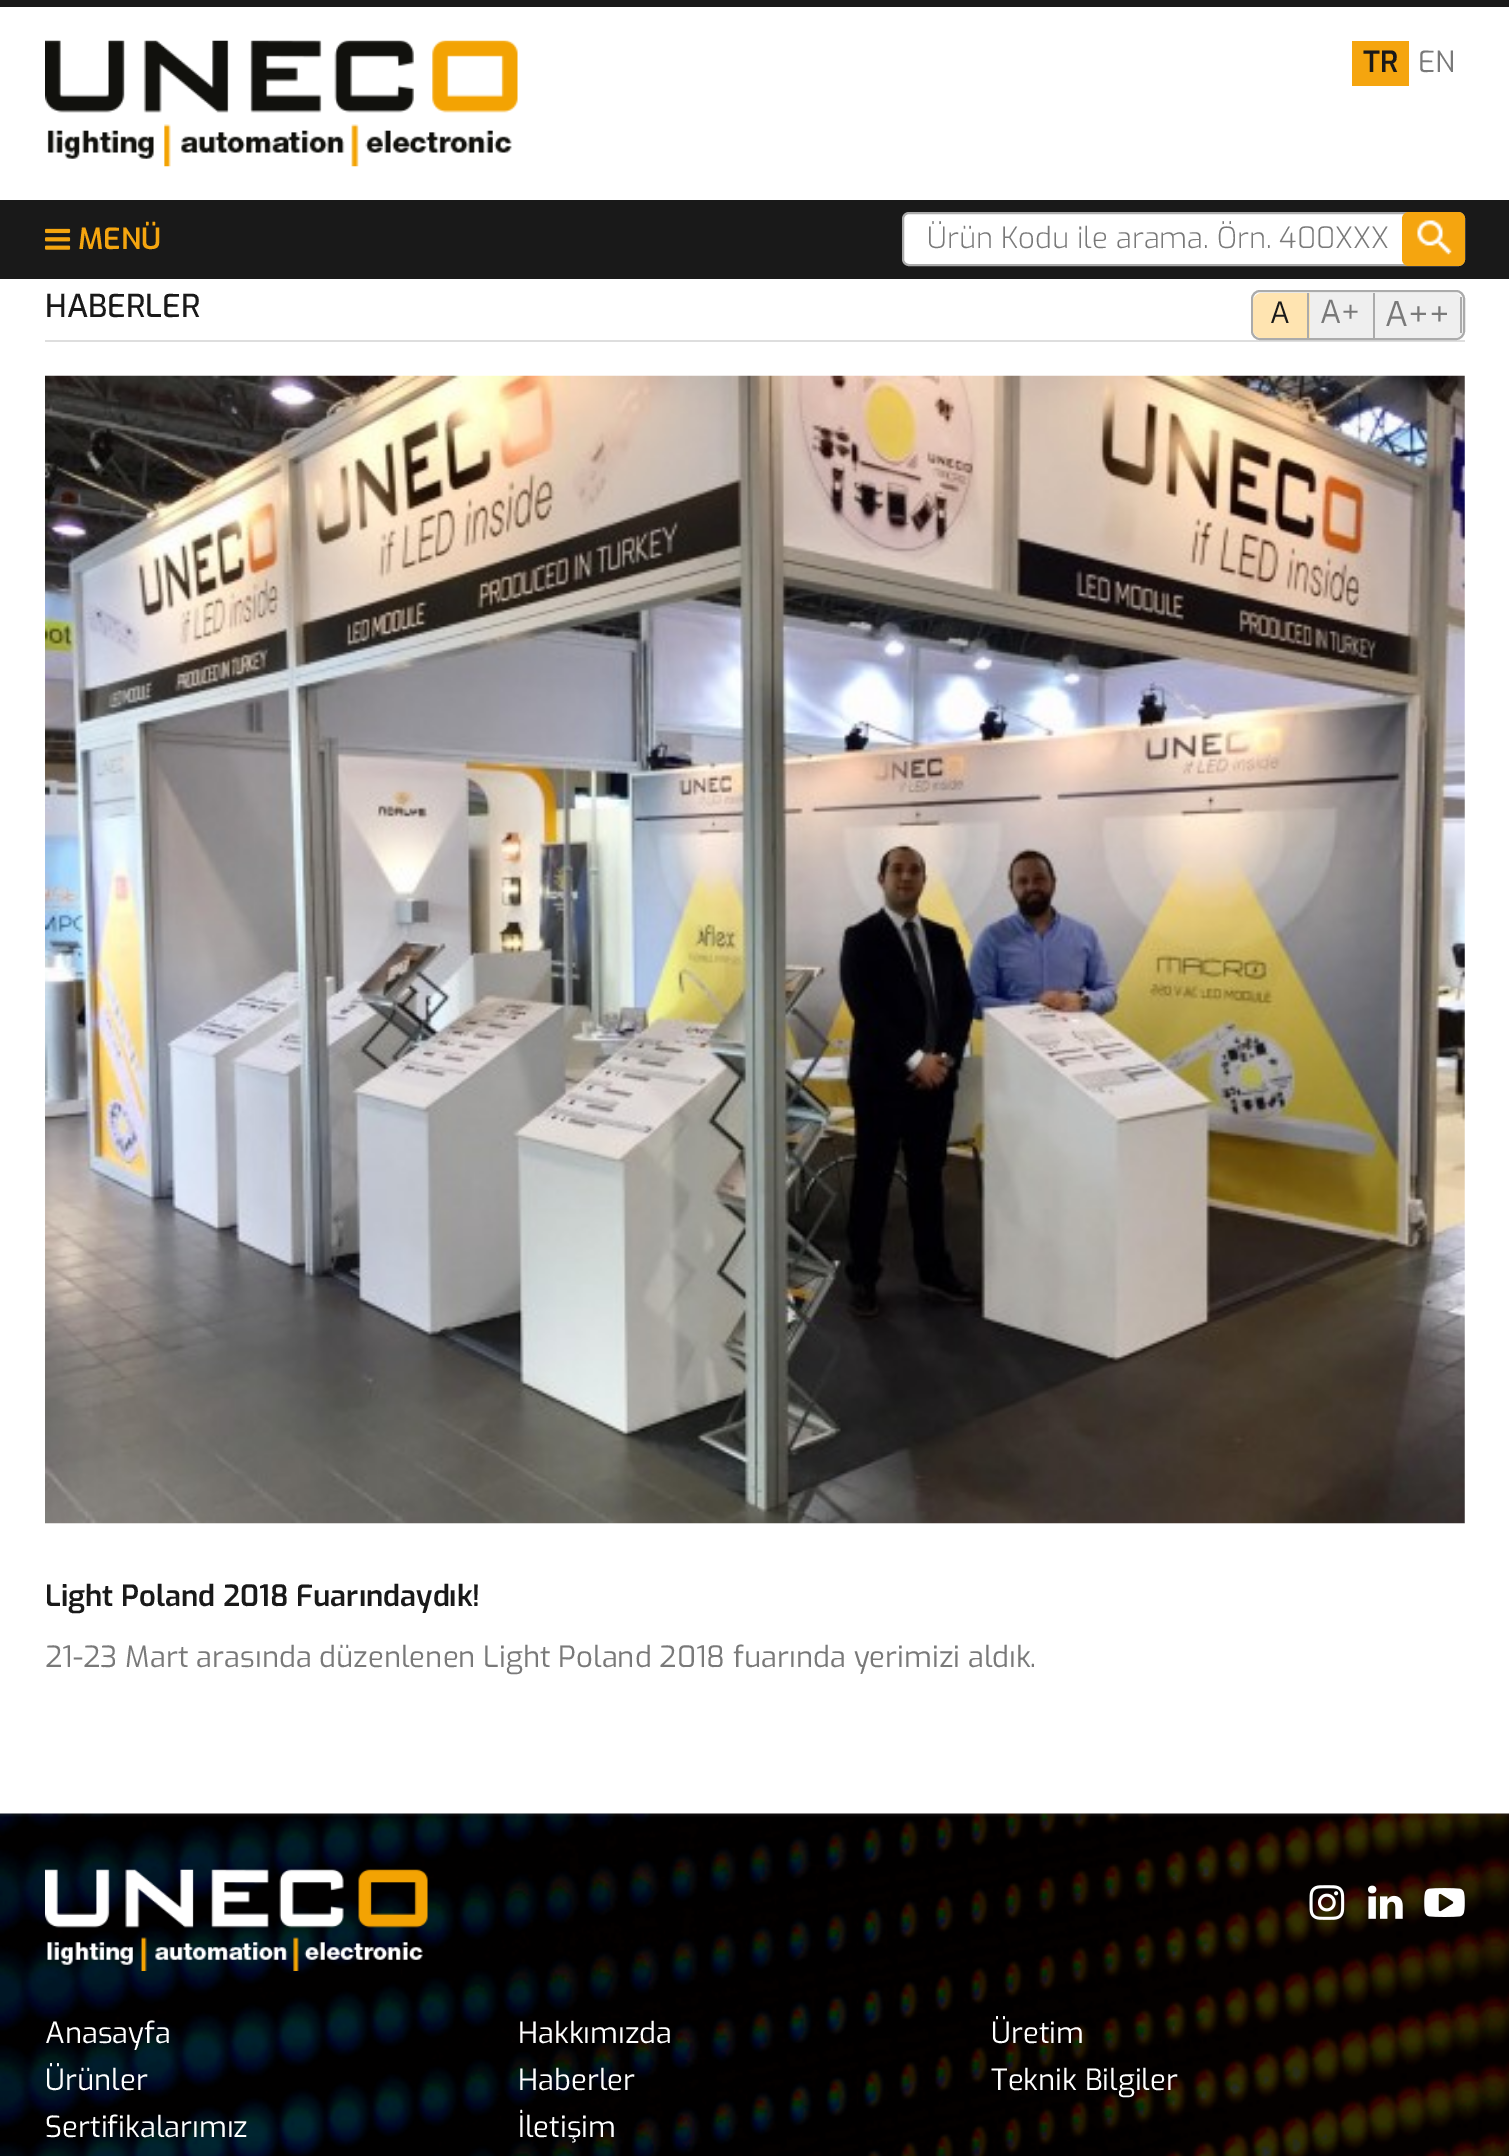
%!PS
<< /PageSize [1509 2156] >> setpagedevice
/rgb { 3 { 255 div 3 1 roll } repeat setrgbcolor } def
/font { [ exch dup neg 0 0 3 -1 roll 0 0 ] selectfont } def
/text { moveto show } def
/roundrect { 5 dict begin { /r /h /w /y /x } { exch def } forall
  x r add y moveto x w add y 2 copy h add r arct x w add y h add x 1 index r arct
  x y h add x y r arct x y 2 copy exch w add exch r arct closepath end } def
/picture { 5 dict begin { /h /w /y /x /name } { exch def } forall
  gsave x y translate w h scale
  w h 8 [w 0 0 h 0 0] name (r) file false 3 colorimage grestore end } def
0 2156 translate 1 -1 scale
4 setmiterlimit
255 255 255 rgb
0 0 1509 2156 rectfill
25 25 25 rgb
0 200 1509 79 rectfill
(img_01.rgb) 45 228 26 22 picture
0 0 1509 7 rectfill
(img_02.rgb) 45 40 473 127 picture
245 165 15 rgb
1352 41 57 45 rectfill
255 255 255 rgb
903 213 561 52 6 roundrect gsave fill grestore
171 171 171 rgb
2 setlinewidth
stroke
245 165 15 rgb
1402 212 63 54 7 roundrect fill
(img_03.rgb) 1417 220 35 35 picture
222 222 222 rgb
45 340 1420 2 rectfill
171 171 171 rgb
1252 291 212 48 8 roundrect stroke
255 228 177 rgb
1262 293 moveto 48 0 rlineto 0 45 rlineto -48 0 rlineto -5 0 -9 -4 -9 -9 rcurveto 0 -27 rlineto 0 -5 4 -9 9 -9 rcurveto closepath fill
171 171 171 rgb
1307 293 2 45 rectfill
239 239 239 rgb
1310 293 63 45 rectfill
171 171 171 rgb
1373 293 2 45 rectfill
239 239 239 rgb
1375 293 moveto 79 0 rlineto 5 0 9 4 9 9 rcurveto 0 27 rlineto 0 5 -4 9 -9 9 rcurveto -79 0 rlineto closepath fill
171 171 171 rgb
1460 297 2 36 rectfill
(img_04.rgb) 45 375 1420 1149 picture
(img_05.rgb) 0 1813 1509 343 picture
(img_06.rgb) 45 1869 383 102 picture
(img_07.rgb) 1309 1885 36 35 picture
(img_08.rgb) 1368 1885 35 34 picture
(img_09.rgb) 1424 1888 41 29 picture
/Exo-SemiBold 29.25 font
245 165 15 rgb
(MENÜ) 78 249 text
25 25 25 rgb
(TR) 1363 72 text
/Exo-Regular 29.25 font
121 121 121 rgb
(EN) 1418 72 text
/Exo-Light 29.25 font
(Ürün Kodu ile arama. Örn. 400XXX) 927 248 text
/Exo-Medium 31.5 font
25 25 25 rgb
(HABERLER) 45 317 text
/Exo-Regular 29.25 font
(A) 1270 323 text
/Exo-Regular 31.5 font
121 121 121 rgb
(A+) 1320 323 text
/Exo-Regular 34 font
(A++) 1385 326 text
/Exo-SemiBold 29.25 font
25 25 25 rgb
(Light Poland 2018 Fuarındaydık!) 45 1606 text
/Exo-Regular 29.25 font
121 121 121 rgb
(21-23 Mart arasında düzenlenen Light Poland 2018 fuarında yerimizi aldık.) 45 1667 text
255 255 255 rgb
(Anasayfa) 45 2043 text
(Hakkımızda) 518 2043 text
(Üretim) 991 2043 text
(Ürünler) 45 2090 text
(Haberler) 518 2090 text
(Teknik Bilgiler) 991 2090 text
(Sertifikalarımız) 45 2137 text
(İletişim) 518 2137 text
showpage
